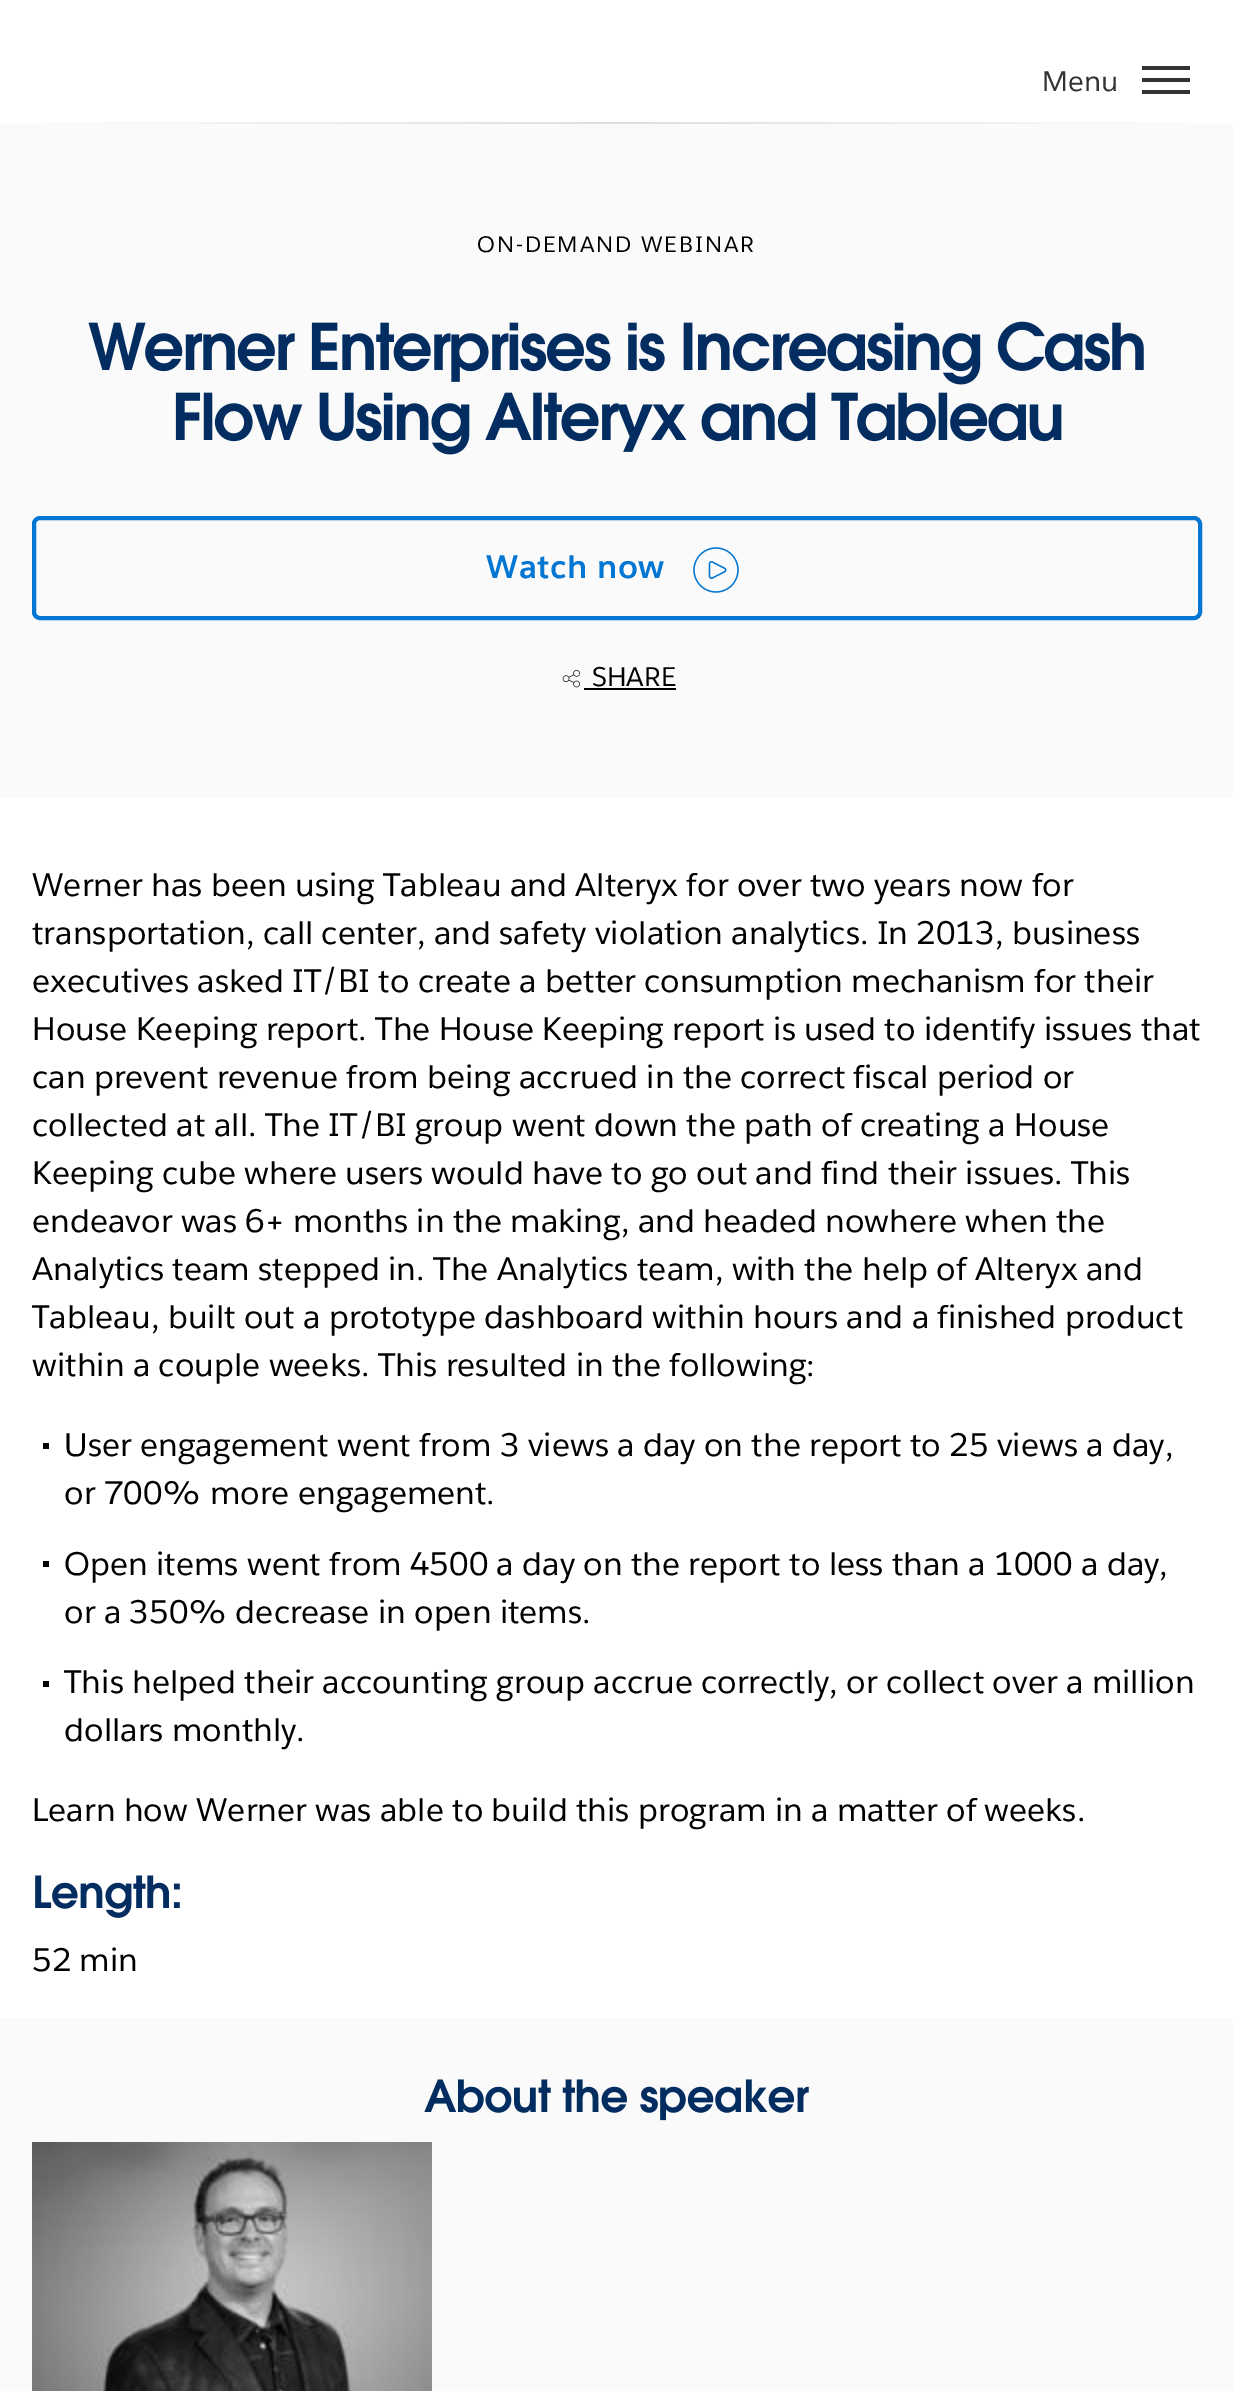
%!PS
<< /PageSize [1233 2391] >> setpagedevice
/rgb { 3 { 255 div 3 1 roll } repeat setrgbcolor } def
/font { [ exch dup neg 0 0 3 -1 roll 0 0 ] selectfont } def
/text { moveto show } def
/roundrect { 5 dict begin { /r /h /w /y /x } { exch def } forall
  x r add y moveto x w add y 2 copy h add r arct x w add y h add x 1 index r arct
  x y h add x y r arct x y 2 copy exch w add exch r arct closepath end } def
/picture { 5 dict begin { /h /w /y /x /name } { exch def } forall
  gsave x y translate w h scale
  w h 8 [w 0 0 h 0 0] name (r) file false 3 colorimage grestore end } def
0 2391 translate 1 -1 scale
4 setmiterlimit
255 255 255 rgb
0 0 1233 2391 rectfill
51 51 51 rgb
1142 78 48 4 rectfill
1142 66 48 4 rectfill
1142 90 48 4 rectfill
gsave 47 122 moveto 1140 0 rlineto 0 2 rlineto -1140 0 rlineto closepath clip newpath
<< /ShadingType 2 /ColorSpace /DeviceRGB /Coords [0 123 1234 123] /Extend [true true] /Function << /FunctionType 3 /Domain [0 1] /Functions [<< /FunctionType 2 /Domain [0 1] /C0 [1 1 1] /C1 [0.871 0.871 0.871] /N 1 >> << /FunctionType 2 /Domain [0 1] /C0 [0.871 0.871 0.871] /C1 [1 1 1] /N 1 >>] /Bounds [0.5] /Encode [0 1 0 1] >> >> shfill grestore
250 250 250 rgb
0 124 1233 674 rectfill
(img_01.rgb) 88 321 1056 64 picture
(img_02.rgb) 175 392 887 63 picture
1 118 211 rgb
4 setlinewidth
34 518 1166 100 6 roundrect stroke
(img_03.rgb) 693 547 46 46 picture
(img_04.rgb) 562 670 18 18 picture
0 0 0 rgb
584 688 92 2 rectfill
43 1443 6 6 rectfill
43 1561 6 6 rectfill
43 1681 6 6 rectfill
(img_05.rgb) 35 1875 145 43 picture
250 250 250 rgb
0 2018 1233 373 rectfill
(img_06.rgb) 424 2079 385 42 picture
(img_07.rgb) 32 2142 400 249 picture
/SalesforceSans-Regular 28 font
51 51 51 rgb
(Menu) 1042 91 text
/SalesforceSans-Regular 22 font
0 0 0 rgb
477 252 moveto 2 0 (ON-DEMAND WEBINAR) ashow
/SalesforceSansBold-Bold 32 font
1 118 211 rgb
486 578 moveto 0.5 0 (Watch now) ashow
/SalesforceSans-Regular 26.5 font
0 0 0 rgb
(SHARE) 592 686 text
/SalesforceSans-Regular 32 font
32 896 moveto 0.05 0 (Werner has been using Tableau and Alteryx for over two years now for) ashow
32 944 moveto 0.05 0 (transportation, call center, and safety violation analytics. In 2013, business) ashow
32 992 moveto 0.05 0 (executives asked IT/BI to create a better consumption mechanism for their) ashow
32 1040 moveto 0.05 0 (House Keeping report. The House Keeping report is used to identify issues that) ashow
32 1088 moveto 0.05 0 (can prevent revenue from being accrued in the correct fiscal period or) ashow
32 1136 moveto 0.05 0 (collected at all. The IT/BI group went down the path of creating a House) ashow
32 1184 moveto 0.05 0 (Keeping cube where users would have to go out and find their issues. This) ashow
32 1232 moveto 0.05 0 (endeavor was 6+ months in the making, and headed nowhere when the) ashow
32 1280 moveto 0.05 0 (Analytics team stepped in. The Analytics team, with the help of Alteryx and) ashow
32 1328 moveto 0.05 0 (Tableau, built out a prototype dashboard within hours and a finished product) ashow
32 1376 moveto 0.05 0 (within a couple weeks. This resulted in the following:) ashow
64 1456 moveto 0.05 0 (User engagement went from 3 views a day on the report to 25 views a day,) ashow
64 1504 moveto 0.05 0 (or 700% more engagement.) ashow
64 1575 moveto 0.05 0 (Open items went from 4500 a day on the report to less than a 1000 a day,) ashow
64 1623 moveto 0.05 0 (or a 350% decrease in open items.) ashow
64 1693 moveto 0.05 0 (This helped their accounting group accrue correctly, or collect over a million) ashow
64 1741 moveto 0.05 0 (dollars monthly.) ashow
32 1821 moveto 0.05 0 (Learn how Werner was able to build this program in a matter of weeks.) ashow
32 1971 moveto 0.05 0 (52 min) ashow
showpage
